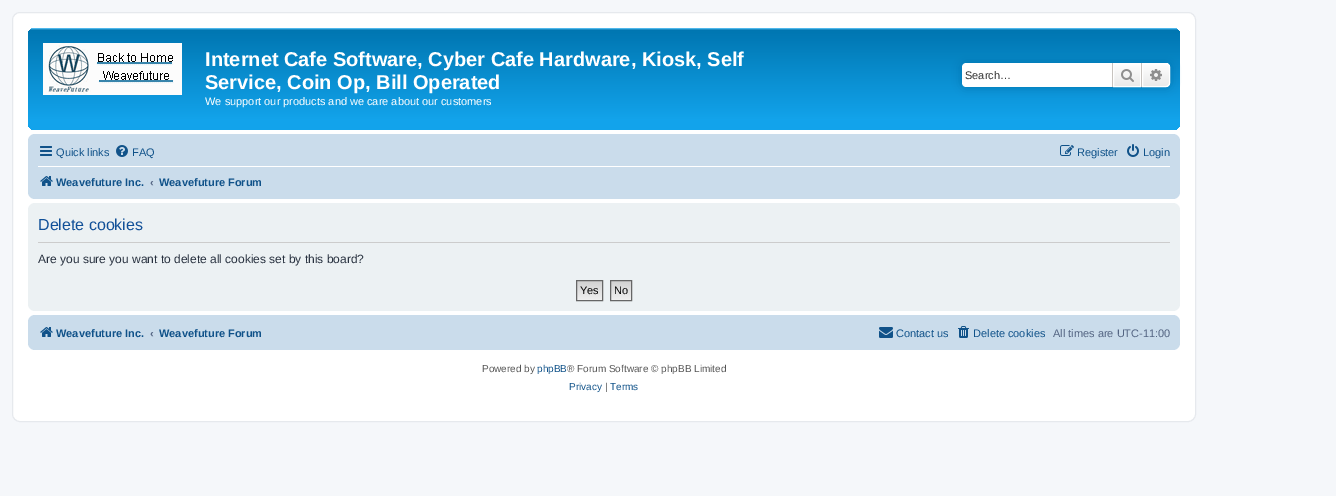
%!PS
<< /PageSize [1336 496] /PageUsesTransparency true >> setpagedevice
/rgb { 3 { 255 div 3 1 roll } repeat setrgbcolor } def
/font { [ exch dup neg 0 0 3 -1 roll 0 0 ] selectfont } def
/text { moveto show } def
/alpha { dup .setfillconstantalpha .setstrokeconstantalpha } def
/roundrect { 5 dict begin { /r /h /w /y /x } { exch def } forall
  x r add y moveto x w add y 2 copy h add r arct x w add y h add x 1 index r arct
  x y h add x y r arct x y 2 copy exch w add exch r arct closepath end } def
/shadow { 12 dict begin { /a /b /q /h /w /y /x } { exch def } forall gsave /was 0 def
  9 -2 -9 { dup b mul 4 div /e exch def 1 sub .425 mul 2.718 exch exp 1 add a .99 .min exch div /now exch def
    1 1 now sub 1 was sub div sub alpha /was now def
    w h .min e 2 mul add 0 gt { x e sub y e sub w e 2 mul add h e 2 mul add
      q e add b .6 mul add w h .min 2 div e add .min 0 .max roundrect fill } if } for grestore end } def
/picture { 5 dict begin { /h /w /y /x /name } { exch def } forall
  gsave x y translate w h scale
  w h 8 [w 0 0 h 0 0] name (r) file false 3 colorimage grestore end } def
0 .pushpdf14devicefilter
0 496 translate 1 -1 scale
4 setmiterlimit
245 247 250 rgb
0 0 1336 496 rectfill
255 255 255 rgb
12.5 12.5 1183 409 7.5 roundrect gsave fill grestore
230 233 237 rgb
stroke
gsave 28 28 1152 102 7 roundrect clip newpath
<< /ShadingType 2 /ColorSpace /DeviceRGB /Coords [604 28 604 130] /Extend [true true] /Function << /FunctionType 3 /Domain [0 1] /Functions [<< /FunctionType 2 /Domain [0 1] /C0 [0.416 0.808 1] /C1 [0 0.463 0.694] /N 1 >> << /FunctionType 2 /Domain [0 1] /C0 [0 0.463 0.694] /C1 [0.071 0.639 0.922] /N 1 >> << /FunctionType 2 /Domain [0 1] /C0 [0.071 0.639 0.922] /C1 [0.071 0.639 0.922] /N 1 >>] /Bounds [0.02 0.9] /Encode [0 1 0 1 0 1] >> >> shfill grestore
(img_01.rgb) 43 43 139 52 picture
0 117 176 rgb
962 63 208 24 4 5 1 shadow
255 255 255 rgb
966 63 moveto 146 0 rlineto 0 24 rlineto -146 0 rlineto -2 0 -4 -2 -4 -4 rcurveto 0 -16 rlineto 0 -2 2 -4 4 -4 rcurveto closepath fill
gsave 1114 64 moveto 26 0 rlineto 0 22 rlineto -26 0 rlineto closepath clip newpath
<< /ShadingType 2 /ColorSpace /DeviceRGB /Coords [1127 63 1127 87] /Extend [true true] /Function << /FunctionType 2 /Domain [0 1] /C0 [1 1 1] /C1 [0.914 0.914 0.914] /N 1 >> >> shfill grestore
1113.5 63.5 27 23 rectstroke
199 195 191 rgb
1141 63 1 24 rectfill
1112 63 1 24 rectfill
(img_02.rgb) 1121 69 13 13 picture
gsave 1142.5 63.5 moveto 23.5 0 rlineto 2 0 3.5 1.5 3.5 3.5 rcurveto 0 16 rlineto 0 2 -1.5 3.5 -3.5 3.5 rcurveto -23.5 0 rlineto closepath clip newpath
<< /ShadingType 2 /ColorSpace /DeviceRGB /Coords [1156 63 1156 87] /Extend [true true] /Function << /FunctionType 2 /Domain [0 1] /C0 [1 1 1] /C1 [0.914 0.914 0.914] /N 1 >> >> shfill grestore
255 255 255 rgb
1142.5 63.5 moveto 23.5 0 rlineto 2 0 3.5 1.5 3.5 3.5 rcurveto 0 16 rlineto 0 2 -1.5 3.5 -3.5 3.5 rcurveto -23.5 0 rlineto closepath stroke
(img_03.rgb) 1150 69 12 12 picture
202 220 235 rgb
28 134 1152 65 7 roundrect fill
(img_04.rgb) 40 146 12 10 picture
(img_05.rgb) 116 145 12 12 picture
(img_06.rgb) 1060 145 14 11 picture
(img_07.rgb) 1127 144 12 13 picture
255 255 255 rgb
38 166 1132 1 rectfill
(img_08.rgb) 40 176 13 10 picture
236 241 243 rgb
28 203 1152 108 7 roundrect fill
204 204 204 rgb
38 242 1132 1 rectfill
gsave 577 281 moveto 25 0 rlineto 0 19 rlineto -25 0 rlineto closepath clip newpath
<< /ShadingType 2 /ColorSpace /DeviceRGB /Coords [590 281 590 300] /Extend [true true] /Function << /FunctionType 2 /Domain [0 1] /C0 [0.824 0.824 0.824] /C1 [0.937 0.937 0.937] /N 1 >> >> shfill grestore
102 102 102 rgb
576.5 280.5 26 20 rectstroke
gsave 611 281 moveto 20 0 rlineto 0 19 rlineto -20 0 rlineto closepath clip newpath
<< /ShadingType 2 /ColorSpace /DeviceRGB /Coords [621 281 621 300] /Extend [true true] /Function << /FunctionType 2 /Domain [0 1] /C0 [0.824 0.824 0.824] /C1 [0.937 0.937 0.937] /N 1 >> >> shfill grestore
610.5 280.5 21 20 rectstroke
202 220 235 rgb
28 315 1152 35 7 roundrect fill
(img_08.rgb) 40 327 13 10 picture
(img_09.rgb) 879 327 14 11 picture
(img_10.rgb) 958 326 11 12 picture
/LiberationSans-Bold 20 font
255 255 255 rgb
(Internet Cafe Software, Cyber Cafe Hardware, Kiosk, Self) 205 66 text
(Service, Coin Op, Bill Operated) 205 89 text
/LiberationSans-Regular 11 font
(We support our products and we care about our customers) 205 105 text
51 51 51 rgb
(Search…) 965 79 text
16 82 137 rgb
(Quick links) 56 156 text
(FAQ) 132 156 text
(Register) 1077 156 text
(Login) 1143 156 text
/LiberationSans-Bold 11 font
(Weavefuture Inc.) 56 186 text
83 100 130 rgb
(‹) 150 186 text
16 82 137 rgb
(Weavefuture Forum) 159 186 text
/LiberationSans-Regular 16 font
17 80 152 rgb
(Delete cookies) 38 230 text
/LiberationSans-Regular 12 font
40 49 63 rgb
(Are you sure you want to delete all cookies set by this board?) 38 263 text
/LiberationSans-Regular 11 font
0 0 0 rgb
(Yes) 580 294 text
(No) 614 294 text
/LiberationSans-Bold 11 font
16 82 137 rgb
(Weavefuture Inc.) 56 337 text
83 100 130 rgb
(‹) 150 337 text
16 82 137 rgb
(Weavefuture Forum) 159 337 text
/LiberationSans-Regular 11 font
(Contact us) 896 337 text
(Delete cookies) 973 337 text
83 100 130 rgb
(All times are UTC-11:00) 1053 337 text
/LiberationSans-Regular 10 font
85 85 85 rgb
(Powered by) 482 372 text
16 82 137 rgb
(phpBB) 537 372 text
85 85 85 rgb
(® Forum Software © phpBB Limited) 567 372 text
16 82 137 rgb
(Privacy) 569 390 text
85 85 85 rgb
(|) 605 390 text
16 82 137 rgb
(Terms) 610 390 text
.poppdf14devicefilter showpage
